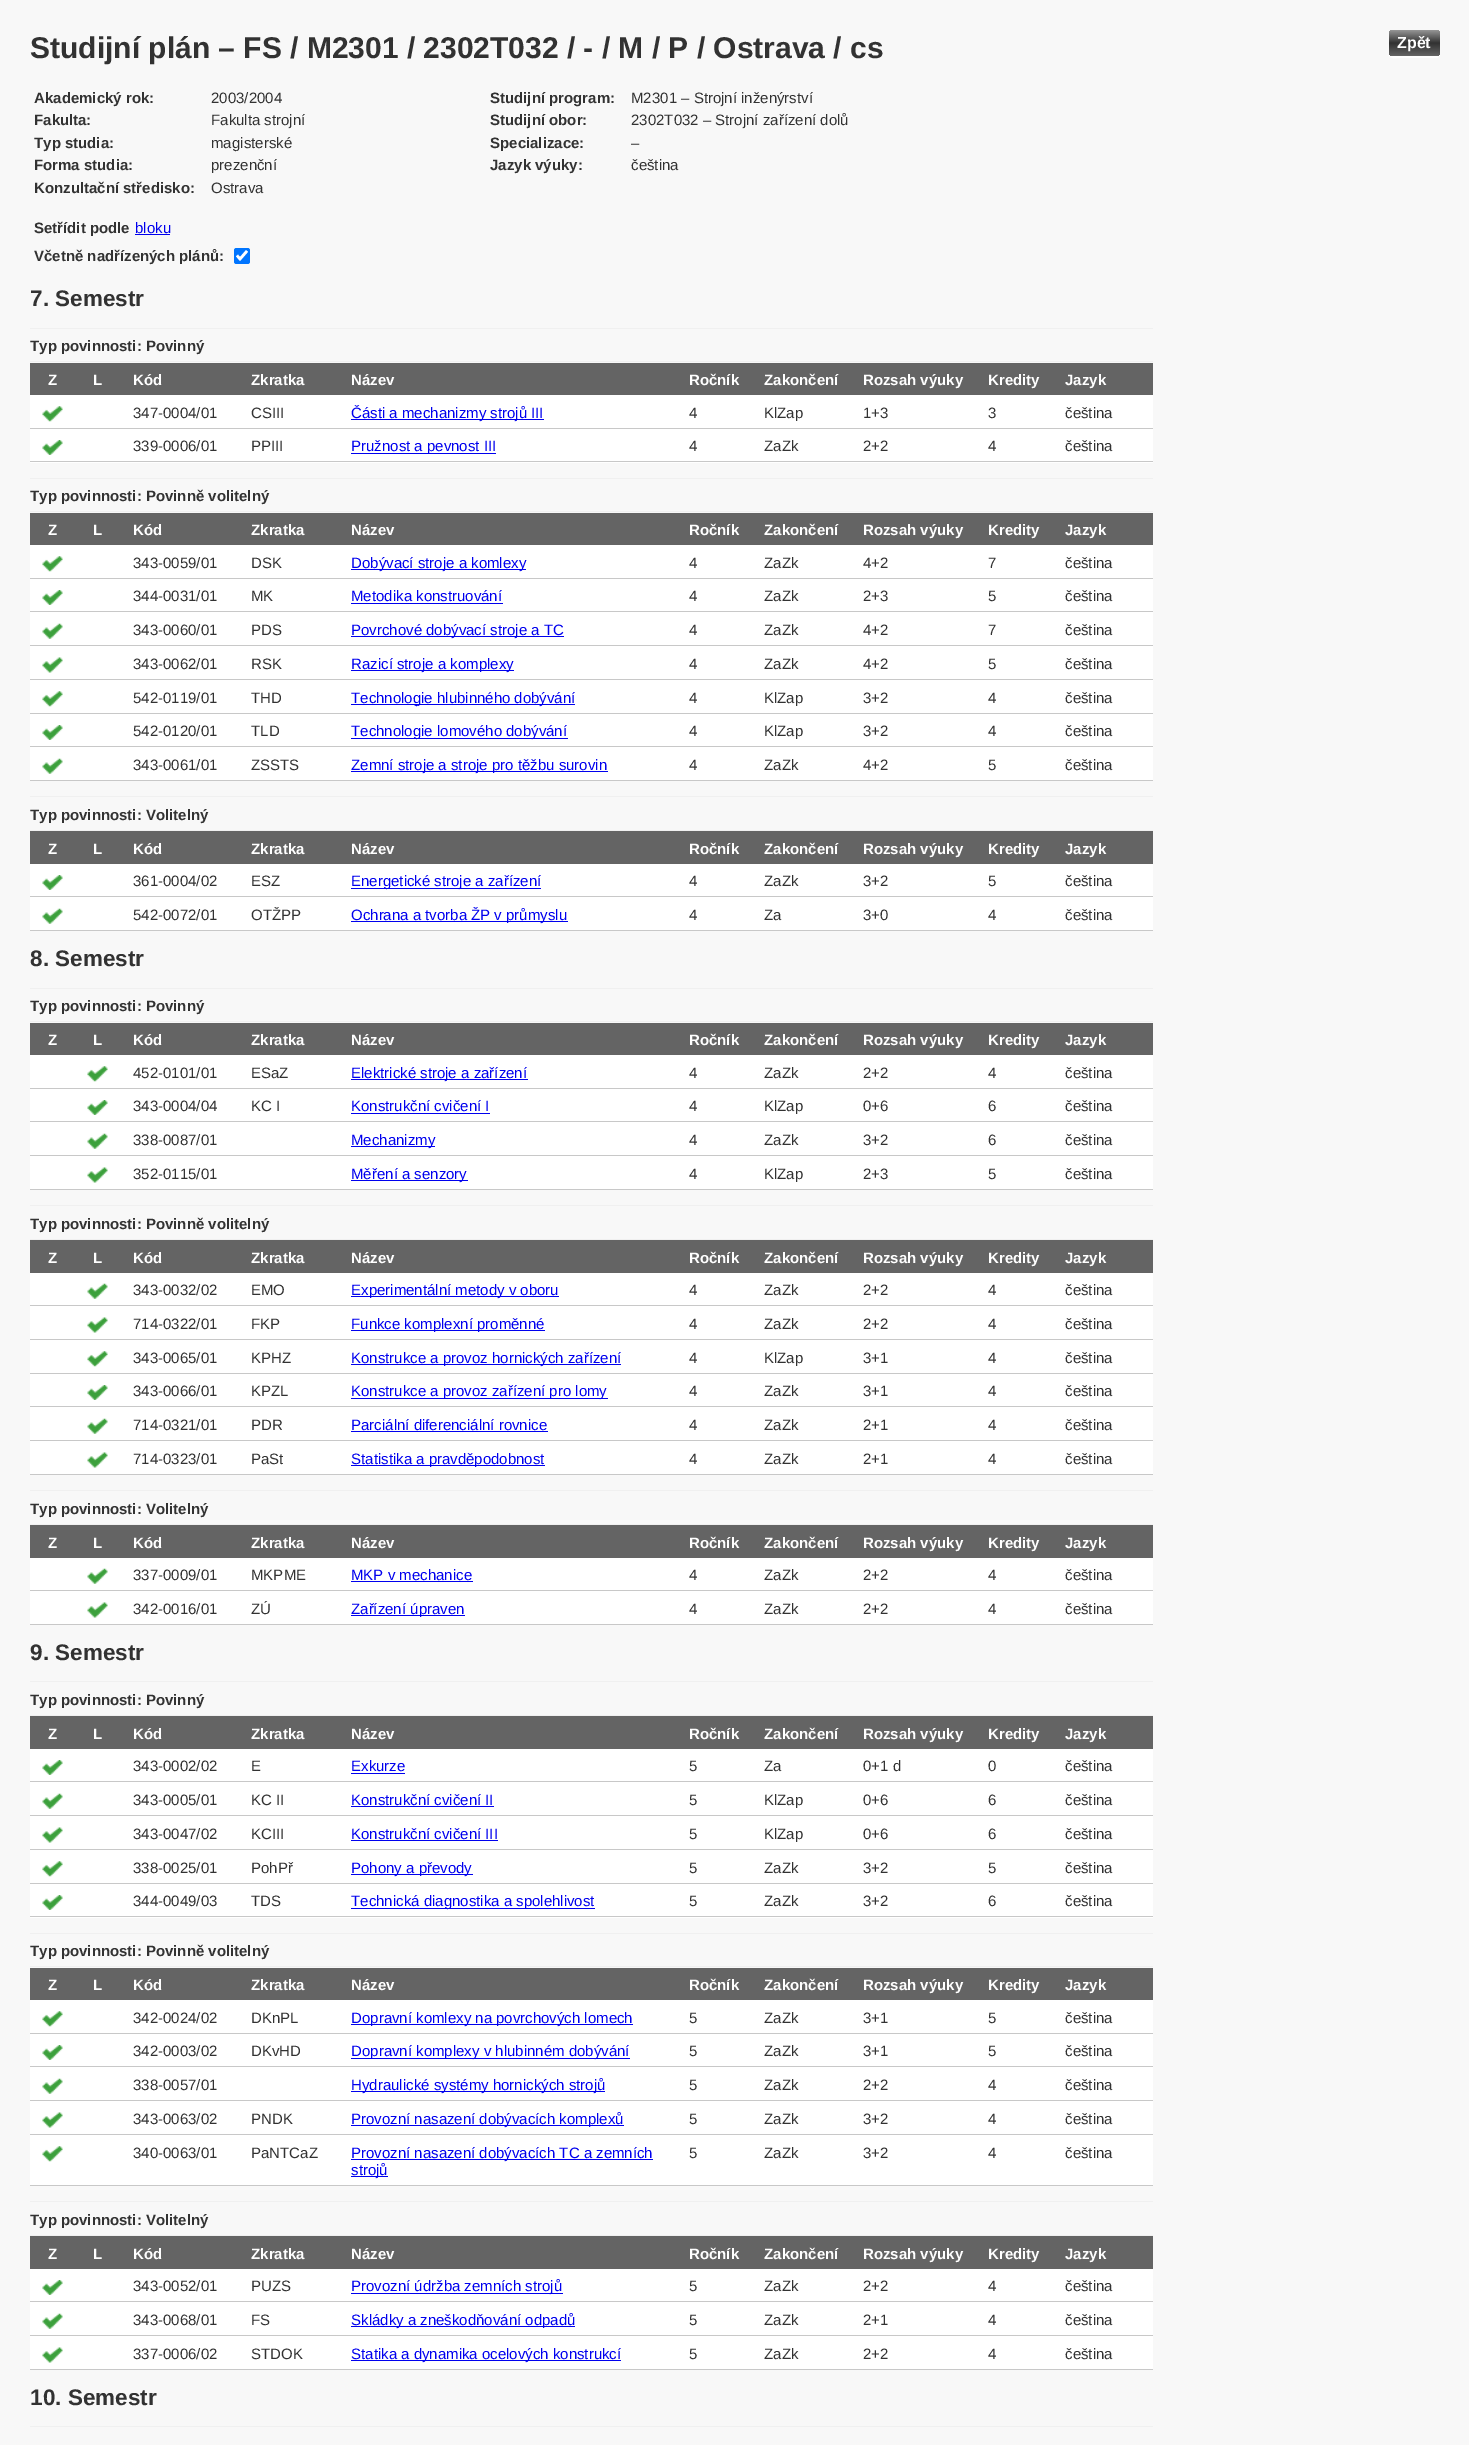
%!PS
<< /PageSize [1469 2445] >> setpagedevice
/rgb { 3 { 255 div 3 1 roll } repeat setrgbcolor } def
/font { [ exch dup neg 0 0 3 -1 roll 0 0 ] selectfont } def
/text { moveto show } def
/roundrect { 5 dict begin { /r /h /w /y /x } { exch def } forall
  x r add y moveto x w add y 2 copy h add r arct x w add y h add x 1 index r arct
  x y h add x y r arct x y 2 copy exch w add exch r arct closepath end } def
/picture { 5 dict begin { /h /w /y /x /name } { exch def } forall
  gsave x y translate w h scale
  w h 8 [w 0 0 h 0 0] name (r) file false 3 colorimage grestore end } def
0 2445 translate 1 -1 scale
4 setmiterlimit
248 248 248 rgb
0 0 1469 2445 rectfill
0 0 238 rgb
135 234 35 1 rectfill
0 117 255 rgb
234 248 16 16 2.5 roundrect fill
255 255 255 rgb
2.6 setlinewidth
237 255.5 moveto 3 3.5 rlineto 7 -8 rlineto stroke
240 240 240 rgb
30 328 1123 1 rectfill
30 361 1123 1 rectfill
100 100 100 rgb
30 363 1123 32 rectfill
255 255 255 rgb
30 395 1123 33 rectfill
(img_01.rgb) 42 406 21 16 picture
0 0 238 rgb
351 419 193 1 rectfill
200 200 200 rgb
30 428 1123 1 rectfill
255 255 255 rgb
30 429 1123 34 rectfill
(img_02.rgb) 42 440 21 15 picture
0 0 238 rgb
351 453 145 1 rectfill
200 200 200 rgb
30 461 1123 1 rectfill
240 240 240 rgb
30 478 1123 1 rectfill
30 511 1123 1 rectfill
100 100 100 rgb
30 513 1123 32 rectfill
255 255 255 rgb
30 545 1123 33 rectfill
(img_01.rgb) 42 556 21 16 picture
0 0 238 rgb
351 569 175 1 rectfill
200 200 200 rgb
30 578 1123 1 rectfill
255 255 255 rgb
30 579 1123 66 rectfill
(img_02.rgb) 42 590 21 15 picture
0 0 238 rgb
351 603 152 1 rectfill
200 200 200 rgb
30 611 1123 1 rectfill
(img_03.rgb) 42 623 21 16 picture
0 0 238 rgb
351 636 213 1 rectfill
200 200 200 rgb
30 645 1123 1 rectfill
255 255 255 rgb
30 646 1123 33 rectfill
(img_04.rgb) 42 657 21 16 picture
0 0 238 rgb
351 670 163 1 rectfill
200 200 200 rgb
30 679 1123 1 rectfill
255 255 255 rgb
30 680 1123 33 rectfill
(img_01.rgb) 42 691 21 16 picture
0 0 238 rgb
351 704 224 1 rectfill
200 200 200 rgb
30 713 1123 1 rectfill
255 255 255 rgb
30 714 1123 66 rectfill
(img_02.rgb) 42 725 21 15 picture
0 0 238 rgb
351 738 217 1 rectfill
200 200 200 rgb
30 746 1123 1 rectfill
(img_03.rgb) 42 758 21 16 picture
0 0 238 rgb
351 771 257 1 rectfill
200 200 200 rgb
30 780 1123 1 rectfill
240 240 240 rgb
30 796 1123 1 rectfill
30 830 1123 1 rectfill
100 100 100 rgb
30 831 1123 33 rectfill
255 255 255 rgb
30 864 1123 66 rectfill
(img_02.rgb) 42 875 21 15 picture
0 0 238 rgb
351 888 190 1 rectfill
200 200 200 rgb
30 896 1123 1 rectfill
(img_03.rgb) 42 908 21 16 picture
0 0 238 rgb
351 921 217 1 rectfill
200 200 200 rgb
30 930 1123 1 rectfill
240 240 240 rgb
30 988 1123 1 rectfill
30 1021 1123 1 rectfill
100 100 100 rgb
30 1023 1123 32 rectfill
255 255 255 rgb
30 1055 1123 33 rectfill
(img_05.rgb) 87 1066 21 16 picture
0 0 238 rgb
351 1079 177 1 rectfill
200 200 200 rgb
30 1088 1123 1 rectfill
255 255 255 rgb
30 1089 1123 66 rectfill
(img_06.rgb) 87 1100 21 15 picture
0 0 238 rgb
351 1113 139 1 rectfill
200 200 200 rgb
30 1121 1123 1 rectfill
(img_07.rgb) 87 1133 21 16 picture
0 0 238 rgb
351 1146 84 1 rectfill
200 200 200 rgb
30 1155 1123 1 rectfill
255 255 255 rgb
30 1156 1123 33 rectfill
(img_08.rgb) 87 1167 21 16 picture
0 0 238 rgb
351 1180 117 1 rectfill
200 200 200 rgb
30 1189 1123 1 rectfill
240 240 240 rgb
30 1205 1123 1 rectfill
30 1239 1123 1 rectfill
100 100 100 rgb
30 1240 1123 33 rectfill
255 255 255 rgb
30 1273 1123 32 rectfill
(img_07.rgb) 87 1283 21 16 picture
0 0 238 rgb
351 1296 208 1 rectfill
200 200 200 rgb
30 1305 1123 1 rectfill
255 255 255 rgb
30 1306 1123 33 rectfill
(img_09.rgb) 87 1317 21 16 picture
0 0 238 rgb
351 1330 194 1 rectfill
200 200 200 rgb
30 1339 1123 1 rectfill
255 255 255 rgb
30 1340 1123 33 rectfill
(img_05.rgb) 87 1351 21 16 picture
0 0 238 rgb
351 1364 270 1 rectfill
200 200 200 rgb
30 1373 1123 1 rectfill
255 255 255 rgb
30 1374 1123 66 rectfill
(img_06.rgb) 87 1385 21 15 picture
0 0 238 rgb
351 1398 257 1 rectfill
200 200 200 rgb
30 1406 1123 1 rectfill
(img_07.rgb) 87 1418 21 16 picture
0 0 238 rgb
351 1431 197 1 rectfill
200 200 200 rgb
30 1440 1123 1 rectfill
255 255 255 rgb
30 1441 1123 33 rectfill
(img_09.rgb) 87 1452 21 16 picture
0 0 238 rgb
351 1465 194 1 rectfill
200 200 200 rgb
30 1474 1123 1 rectfill
240 240 240 rgb
30 1490 1123 1 rectfill
30 1524 1123 1 rectfill
100 100 100 rgb
30 1525 1123 33 rectfill
255 255 255 rgb
30 1558 1123 32 rectfill
(img_07.rgb) 87 1568 21 16 picture
0 0 238 rgb
351 1581 122 1 rectfill
200 200 200 rgb
30 1590 1123 1 rectfill
255 255 255 rgb
30 1591 1123 33 rectfill
(img_09.rgb) 87 1602 21 16 picture
0 0 238 rgb
351 1615 114 1 rectfill
200 200 200 rgb
30 1624 1123 1 rectfill
240 240 240 rgb
30 1681 1123 1 rectfill
30 1715 1123 1 rectfill
100 100 100 rgb
30 1716 1123 33 rectfill
255 255 255 rgb
30 1749 1123 66 rectfill
(img_02.rgb) 42 1760 21 15 picture
0 0 238 rgb
351 1773 54 1 rectfill
200 200 200 rgb
30 1781 1123 1 rectfill
(img_03.rgb) 42 1793 21 16 picture
0 0 238 rgb
351 1806 143 1 rectfill
200 200 200 rgb
30 1815 1123 1 rectfill
255 255 255 rgb
30 1816 1123 33 rectfill
(img_04.rgb) 42 1827 21 16 picture
0 0 238 rgb
351 1840 147 1 rectfill
200 200 200 rgb
30 1849 1123 1 rectfill
255 255 255 rgb
30 1850 1123 33 rectfill
(img_01.rgb) 42 1861 21 16 picture
0 0 238 rgb
351 1874 122 1 rectfill
200 200 200 rgb
30 1883 1123 1 rectfill
255 255 255 rgb
30 1884 1123 34 rectfill
(img_02.rgb) 42 1895 21 15 picture
0 0 238 rgb
351 1908 244 1 rectfill
200 200 200 rgb
30 1916 1123 1 rectfill
240 240 240 rgb
30 1933 1123 1 rectfill
30 1966 1123 1 rectfill
100 100 100 rgb
30 1968 1123 32 rectfill
255 255 255 rgb
30 2000 1123 33 rectfill
(img_01.rgb) 42 2011 21 16 picture
0 0 238 rgb
351 2024 282 1 rectfill
200 200 200 rgb
30 2033 1123 1 rectfill
255 255 255 rgb
30 2034 1123 66 rectfill
(img_10.rgb) 42 2045 21 15 picture
0 0 238 rgb
351 2058 279 1 rectfill
200 200 200 rgb
30 2066 1123 1 rectfill
(img_03.rgb) 42 2078 21 16 picture
0 0 238 rgb
351 2091 254 1 rectfill
200 200 200 rgb
30 2100 1123 1 rectfill
255 255 255 rgb
30 2101 1123 33 rectfill
(img_04.rgb) 42 2112 21 16 picture
0 0 238 rgb
351 2125 273 1 rectfill
200 200 200 rgb
30 2134 1123 1 rectfill
255 255 255 rgb
30 2135 1123 50 rectfill
(img_01.rgb) 42 2146 21 16 picture
0 0 238 rgb
351 2159 302 1 rectfill
351 2176 37 1 rectfill
200 200 200 rgb
30 2185 1123 1 rectfill
240 240 240 rgb
30 2201 1123 1 rectfill
30 2235 1123 1 rectfill
100 100 100 rgb
30 2236 1123 33 rectfill
255 255 255 rgb
30 2269 1123 66 rectfill
(img_02.rgb) 42 2280 21 15 picture
0 0 238 rgb
351 2293 212 1 rectfill
200 200 200 rgb
30 2301 1123 1 rectfill
(img_03.rgb) 42 2313 21 16 picture
0 0 238 rgb
351 2326 224 1 rectfill
200 200 200 rgb
30 2335 1123 1 rectfill
255 255 255 rgb
30 2336 1123 33 rectfill
(img_04.rgb) 42 2347 21 16 picture
0 0 238 rgb
351 2360 270 1 rectfill
200 200 200 rgb
30 2369 1123 1 rectfill
240 240 240 rgb
30 2426 1123 1 rectfill
255 255 255 rgb
1389 54 moveto 0 6 8 4 11 4 rcurveto 29 0 rlineto 6 0 11 2 11 -6 rcurveto 0 3 -2 4 -4 4 rcurveto -44 0 rlineto -1 0 -2 -1 -3 -2 rcurveto closepath fill
gsave 1389 30 51 26 4 roundrect clip newpath
<< /ShadingType 2 /ColorSpace /DeviceRGB /Coords [1414 30 1414 56] /Extend [true true] /Function << /FunctionType 3 /Domain [0 1] /Functions [<< /FunctionType 2 /Domain [0 1] /C0 [0.588 0.588 0.588] /C1 [0.196 0.196 0.196] /N 1 >> << /FunctionType 2 /Domain [0 1] /C0 [0.196 0.196 0.196] /C1 [0.392 0.392 0.392] /N 1 >>] /Bounds [0.5] /Encode [0 1 0 1] >> >> shfill grestore
/LiberationSans-Bold 30 font
50 50 50 rgb
(Studijní plán – FS / M2301 / 2302T032 / - / M / P / Ostrava / cs) 30 58 text
/LiberationSans-Bold 15 font
(Akademický rok:) 34 103 text
/LiberationSans-Regular 15 font
(2003/2004) 211 103 text
/LiberationSans-Bold 15 font
(Studijní program:) 490 103 text
/LiberationSans-Regular 15 font
(M2301 – Strojní inženýrství) 631 103 text
/LiberationSans-Bold 15 font
(Fakulta:) 34 125 text
/LiberationSans-Regular 15 font
(Fakulta strojní) 211 125 text
/LiberationSans-Bold 15 font
(Studijní obor:) 490 125 text
/LiberationSans-Regular 15 font
(2302T032 – Strojní zařízení dolů) 631 125 text
/LiberationSans-Bold 15 font
(Typ studia:) 34 148 text
/LiberationSans-Regular 15 font
(magisterské) 211 148 text
/LiberationSans-Bold 15 font
(Specializace:) 490 148 text
/LiberationSans-Regular 15 font
(–) 631 148 text
/LiberationSans-Bold 15 font
(Forma studia:) 34 170 text
/LiberationSans-Regular 15 font
(prezenční) 211 170 text
/LiberationSans-Bold 15 font
(Jazyk výuky:) 490 170 text
/LiberationSans-Regular 15 font
(čeština) 631 170 text
/LiberationSans-Bold 15 font
(Konzultační středisko:) 34 193 text
/LiberationSans-Regular 15 font
(Ostrava) 211 193 text
/LiberationSans-Bold 15 font
(Setřídit podle) 34 233 text
/LiberationSans-Regular 15 font
0 0 238 rgb
(bloku) 135 233 text
/LiberationSans-Bold 15 font
50 50 50 rgb
(Včetně nadřízených plánů:) 34 261 text
/LiberationSans-Bold 22.5 font
(7. Semestr) 30 306 text
/LiberationSans-Bold 15 font
(Typ povinnosti: Povinný) 30 351 text
255 255 255 rgb
(Z) 48 385 text
(L) 93 385 text
(Kód) 133 385 text
(Zkratka) 251 385 text
(Název) 351 385 text
(Ročník) 689 385 text
(Zakončení) 764 385 text
(Rozsah výuky) 863 385 text
(Kredity) 988 385 text
(Jazyk) 1065 385 text
/LiberationSans-Regular 15 font
50 50 50 rgb
(347-0004/01) 133 418 text
(CSIII) 251 418 text
0 0 238 rgb
(Části a mechanizmy strojů III) 351 418 text
50 50 50 rgb
(4) 689 418 text
(KlZap) 764 418 text
(1+3) 863 418 text
(3) 988 418 text
(čeština) 1065 418 text
(339-0006/01) 133 451 text
(PPIII) 251 451 text
0 0 238 rgb
(Pružnost a pevnost III) 351 451 text
50 50 50 rgb
(4) 689 451 text
(ZaZk) 764 451 text
(2+2) 863 451 text
(4) 988 451 text
(čeština) 1065 451 text
/LiberationSans-Bold 15 font
(Typ povinnosti: Povinně volitelný) 30 501 text
255 255 255 rgb
(Z) 48 535 text
(L) 93 535 text
(Kód) 133 535 text
(Zkratka) 251 535 text
(Název) 351 535 text
(Ročník) 689 535 text
(Zakončení) 764 535 text
(Rozsah výuky) 863 535 text
(Kredity) 988 535 text
(Jazyk) 1065 535 text
/LiberationSans-Regular 15 font
50 50 50 rgb
(343-0059/01) 133 568 text
(DSK) 251 568 text
0 0 238 rgb
(Dobývací stroje a komlexy) 351 568 text
50 50 50 rgb
(4) 689 568 text
(ZaZk) 764 568 text
(4+2) 863 568 text
(7) 988 568 text
(čeština) 1065 568 text
(344-0031/01) 133 601 text
(MK) 251 601 text
0 0 238 rgb
(Metodika konstruování) 351 601 text
50 50 50 rgb
(4) 689 601 text
(ZaZk) 764 601 text
(2+3) 863 601 text
(5) 988 601 text
(čeština) 1065 601 text
(343-0060/01) 133 635 text
(PDS) 251 635 text
0 0 238 rgb
(Povrchové dobývací stroje a TC) 351 635 text
50 50 50 rgb
(4) 689 635 text
(ZaZk) 764 635 text
(4+2) 863 635 text
(7) 988 635 text
(čeština) 1065 635 text
(343-0062/01) 133 669 text
(RSK) 251 669 text
0 0 238 rgb
(Razicí stroje a komplexy) 351 669 text
50 50 50 rgb
(4) 689 669 text
(ZaZk) 764 669 text
(4+2) 863 669 text
(5) 988 669 text
(čeština) 1065 669 text
(542-0119/01) 133 703 text
(THD) 251 703 text
0 0 238 rgb
(Technologie hlubinného dobývání) 351 703 text
50 50 50 rgb
(4) 689 703 text
(KlZap) 764 703 text
(3+2) 863 703 text
(4) 988 703 text
(čeština) 1065 703 text
(542-0120/01) 133 736 text
(TLD) 251 736 text
0 0 238 rgb
(Technologie lomového dobývání) 351 736 text
50 50 50 rgb
(4) 689 736 text
(KlZap) 764 736 text
(3+2) 863 736 text
(4) 988 736 text
(čeština) 1065 736 text
(343-0061/01) 133 770 text
(ZSSTS) 251 770 text
0 0 238 rgb
(Zemní stroje a stroje pro těžbu surovin) 351 770 text
50 50 50 rgb
(4) 689 770 text
(ZaZk) 764 770 text
(4+2) 863 770 text
(5) 988 770 text
(čeština) 1065 770 text
/LiberationSans-Bold 15 font
(Typ povinnosti: Volitelný) 30 820 text
255 255 255 rgb
(Z) 48 854 text
(L) 93 854 text
(Kód) 133 854 text
(Zkratka) 251 854 text
(Název) 351 854 text
(Ročník) 689 854 text
(Zakončení) 764 854 text
(Rozsah výuky) 863 854 text
(Kredity) 988 854 text
(Jazyk) 1065 854 text
/LiberationSans-Regular 15 font
50 50 50 rgb
(361-0004/02) 133 886 text
(ESZ) 251 886 text
0 0 238 rgb
(Energetické stroje a zařízení) 351 886 text
50 50 50 rgb
(4) 689 886 text
(ZaZk) 764 886 text
(3+2) 863 886 text
(5) 988 886 text
(čeština) 1065 886 text
(542-0072/01) 133 920 text
(OTŽPP) 251 920 text
0 0 238 rgb
(Ochrana a tvorba ŽP v průmyslu) 351 920 text
50 50 50 rgb
(4) 689 920 text
(Za) 764 920 text
(3+0) 863 920 text
(4) 988 920 text
(čeština) 1065 920 text
/LiberationSans-Bold 22.5 font
(8. Semestr) 30 966 text
/LiberationSans-Bold 15 font
(Typ povinnosti: Povinný) 30 1011 text
255 255 255 rgb
(Z) 48 1045 text
(L) 93 1045 text
(Kód) 133 1045 text
(Zkratka) 251 1045 text
(Název) 351 1045 text
(Ročník) 689 1045 text
(Zakončení) 764 1045 text
(Rozsah výuky) 863 1045 text
(Kredity) 988 1045 text
(Jazyk) 1065 1045 text
/LiberationSans-Regular 15 font
50 50 50 rgb
(452-0101/01) 133 1078 text
(ESaZ) 251 1078 text
0 0 238 rgb
(Elektrické stroje a zařízení) 351 1078 text
50 50 50 rgb
(4) 689 1078 text
(ZaZk) 764 1078 text
(2+2) 863 1078 text
(4) 988 1078 text
(čeština) 1065 1078 text
(343-0004/04) 133 1111 text
(KC I) 251 1111 text
0 0 238 rgb
(Konstrukční cvičení I) 351 1111 text
50 50 50 rgb
(4) 689 1111 text
(KlZap) 764 1111 text
(0+6) 863 1111 text
(6) 988 1111 text
(čeština) 1065 1111 text
(338-0087/01) 133 1145 text
0 0 238 rgb
(Mechanizmy) 351 1145 text
50 50 50 rgb
(4) 689 1145 text
(ZaZk) 764 1145 text
(3+2) 863 1145 text
(6) 988 1145 text
(čeština) 1065 1145 text
(352-0115/01) 133 1179 text
0 0 238 rgb
(Měření a senzory) 351 1179 text
50 50 50 rgb
(4) 689 1179 text
(KlZap) 764 1179 text
(2+3) 863 1179 text
(5) 988 1179 text
(čeština) 1065 1179 text
/LiberationSans-Bold 15 font
(Typ povinnosti: Povinně volitelný) 30 1229 text
255 255 255 rgb
(Z) 48 1263 text
(L) 93 1263 text
(Kód) 133 1263 text
(Zkratka) 251 1263 text
(Název) 351 1263 text
(Ročník) 689 1263 text
(Zakončení) 764 1263 text
(Rozsah výuky) 863 1263 text
(Kredity) 988 1263 text
(Jazyk) 1065 1263 text
/LiberationSans-Regular 15 font
50 50 50 rgb
(343-0032/02) 133 1295 text
(EMO) 251 1295 text
0 0 238 rgb
(Experimentální metody v oboru) 351 1295 text
50 50 50 rgb
(4) 689 1295 text
(ZaZk) 764 1295 text
(2+2) 863 1295 text
(4) 988 1295 text
(čeština) 1065 1295 text
(714-0322/01) 133 1329 text
(FKP) 251 1329 text
0 0 238 rgb
(Funkce komplexní proměnné) 351 1329 text
50 50 50 rgb
(4) 689 1329 text
(ZaZk) 764 1329 text
(2+2) 863 1329 text
(4) 988 1329 text
(čeština) 1065 1329 text
(343-0065/01) 133 1363 text
(KPHZ) 251 1363 text
0 0 238 rgb
(Konstrukce a provoz hornických zařízení) 351 1363 text
50 50 50 rgb
(4) 689 1363 text
(KlZap) 764 1363 text
(3+1) 863 1363 text
(4) 988 1363 text
(čeština) 1065 1363 text
(343-0066/01) 133 1396 text
(KPZL) 251 1396 text
0 0 238 rgb
(Konstrukce a provoz zařízení pro lomy) 351 1396 text
50 50 50 rgb
(4) 689 1396 text
(ZaZk) 764 1396 text
(3+1) 863 1396 text
(4) 988 1396 text
(čeština) 1065 1396 text
(714-0321/01) 133 1430 text
(PDR) 251 1430 text
0 0 238 rgb
(Parciální diferenciální rovnice) 351 1430 text
50 50 50 rgb
(4) 689 1430 text
(ZaZk) 764 1430 text
(2+1) 863 1430 text
(4) 988 1430 text
(čeština) 1065 1430 text
(714-0323/01) 133 1464 text
(PaSt) 251 1464 text
0 0 238 rgb
(Statistika a pravděpodobnost) 351 1464 text
50 50 50 rgb
(4) 689 1464 text
(ZaZk) 764 1464 text
(2+1) 863 1464 text
(4) 988 1464 text
(čeština) 1065 1464 text
/LiberationSans-Bold 15 font
(Typ povinnosti: Volitelný) 30 1514 text
255 255 255 rgb
(Z) 48 1548 text
(L) 93 1548 text
(Kód) 133 1548 text
(Zkratka) 251 1548 text
(Název) 351 1548 text
(Ročník) 689 1548 text
(Zakončení) 764 1548 text
(Rozsah výuky) 863 1548 text
(Kredity) 988 1548 text
(Jazyk) 1065 1548 text
/LiberationSans-Regular 15 font
50 50 50 rgb
(337-0009/01) 133 1580 text
(MKPME) 251 1580 text
0 0 238 rgb
(MKP v mechanice) 351 1580 text
50 50 50 rgb
(4) 689 1580 text
(ZaZk) 764 1580 text
(2+2) 863 1580 text
(4) 988 1580 text
(čeština) 1065 1580 text
(342-0016/01) 133 1614 text
(ZÚ) 251 1614 text
0 0 238 rgb
(Zařízení úpraven) 351 1614 text
50 50 50 rgb
(4) 689 1614 text
(ZaZk) 764 1614 text
(2+2) 863 1614 text
(4) 988 1614 text
(čeština) 1065 1614 text
/LiberationSans-Bold 22.5 font
(9. Semestr) 30 1660 text
/LiberationSans-Bold 15 font
(Typ povinnosti: Povinný) 30 1705 text
255 255 255 rgb
(Z) 48 1739 text
(L) 93 1739 text
(Kód) 133 1739 text
(Zkratka) 251 1739 text
(Název) 351 1739 text
(Ročník) 689 1739 text
(Zakončení) 764 1739 text
(Rozsah výuky) 863 1739 text
(Kredity) 988 1739 text
(Jazyk) 1065 1739 text
/LiberationSans-Regular 15 font
50 50 50 rgb
(343-0002/02) 133 1771 text
(E) 251 1771 text
0 0 238 rgb
(Exkurze) 351 1771 text
50 50 50 rgb
(5) 689 1771 text
(Za) 764 1771 text
(0+1 d) 863 1771 text
(0) 988 1771 text
(čeština) 1065 1771 text
(343-0005/01) 133 1805 text
(KC II) 251 1805 text
0 0 238 rgb
(Konstrukční cvičení II) 351 1805 text
50 50 50 rgb
(5) 689 1805 text
(KlZap) 764 1805 text
(0+6) 863 1805 text
(6) 988 1805 text
(čeština) 1065 1805 text
(343-0047/02) 133 1839 text
(KCIII) 251 1839 text
0 0 238 rgb
(Konstrukční cvičení III) 351 1839 text
50 50 50 rgb
(5) 689 1839 text
(KlZap) 764 1839 text
(0+6) 863 1839 text
(6) 988 1839 text
(čeština) 1065 1839 text
(338-0025/01) 133 1873 text
(PohPř) 251 1873 text
0 0 238 rgb
(Pohony a převody) 351 1873 text
50 50 50 rgb
(5) 689 1873 text
(ZaZk) 764 1873 text
(3+2) 863 1873 text
(5) 988 1873 text
(čeština) 1065 1873 text
(344-0049/03) 133 1906 text
(TDS) 251 1906 text
0 0 238 rgb
(Technická diagnostika a spolehlivost) 351 1906 text
50 50 50 rgb
(5) 689 1906 text
(ZaZk) 764 1906 text
(3+2) 863 1906 text
(6) 988 1906 text
(čeština) 1065 1906 text
/LiberationSans-Bold 15 font
(Typ povinnosti: Povinně volitelný) 30 1956 text
255 255 255 rgb
(Z) 48 1990 text
(L) 93 1990 text
(Kód) 133 1990 text
(Zkratka) 251 1990 text
(Název) 351 1990 text
(Ročník) 689 1990 text
(Zakončení) 764 1990 text
(Rozsah výuky) 863 1990 text
(Kredity) 988 1990 text
(Jazyk) 1065 1990 text
/LiberationSans-Regular 15 font
50 50 50 rgb
(342-0024/02) 133 2023 text
(DKnPL) 251 2023 text
0 0 238 rgb
(Dopravní komlexy na povrchových lomech) 351 2023 text
50 50 50 rgb
(5) 689 2023 text
(ZaZk) 764 2023 text
(3+1) 863 2023 text
(5) 988 2023 text
(čeština) 1065 2023 text
(342-0003/02) 133 2056 text
(DKvHD) 251 2056 text
0 0 238 rgb
(Dopravní komplexy v hlubinném dobývání) 351 2056 text
50 50 50 rgb
(5) 689 2056 text
(ZaZk) 764 2056 text
(3+1) 863 2056 text
(5) 988 2056 text
(čeština) 1065 2056 text
(338-0057/01) 133 2090 text
0 0 238 rgb
(Hydraulické systémy hornických strojů) 351 2090 text
50 50 50 rgb
(5) 689 2090 text
(ZaZk) 764 2090 text
(2+2) 863 2090 text
(4) 988 2090 text
(čeština) 1065 2090 text
(343-0063/02) 133 2124 text
(PNDK) 251 2124 text
0 0 238 rgb
(Provozní nasazení dobývacích komplexů) 351 2124 text
50 50 50 rgb
(5) 689 2124 text
(ZaZk) 764 2124 text
(3+2) 863 2124 text
(4) 988 2124 text
(čeština) 1065 2124 text
(340-0063/01) 133 2158 text
(PaNTCaZ) 251 2158 text
0 0 238 rgb
(Provozní nasazení dobývacích TC a zemních) 351 2158 text
(strojů) 351 2175 text
50 50 50 rgb
(5) 689 2158 text
(ZaZk) 764 2158 text
(3+2) 863 2158 text
(4) 988 2158 text
(čeština) 1065 2158 text
/LiberationSans-Bold 15 font
(Typ povinnosti: Volitelný) 30 2225 text
255 255 255 rgb
(Z) 48 2259 text
(L) 93 2259 text
(Kód) 133 2259 text
(Zkratka) 251 2259 text
(Název) 351 2259 text
(Ročník) 689 2259 text
(Zakončení) 764 2259 text
(Rozsah výuky) 863 2259 text
(Kredity) 988 2259 text
(Jazyk) 1065 2259 text
/LiberationSans-Regular 15 font
50 50 50 rgb
(343-0052/01) 133 2291 text
(PUZS) 251 2291 text
0 0 238 rgb
(Provozní údržba zemních strojů) 351 2291 text
50 50 50 rgb
(5) 689 2291 text
(ZaZk) 764 2291 text
(2+2) 863 2291 text
(4) 988 2291 text
(čeština) 1065 2291 text
(343-0068/01) 133 2325 text
(FS) 251 2325 text
0 0 238 rgb
(Skládky a zneškodňování odpadů) 351 2325 text
50 50 50 rgb
(5) 689 2325 text
(ZaZk) 764 2325 text
(2+1) 863 2325 text
(4) 988 2325 text
(čeština) 1065 2325 text
(337-0006/02) 133 2359 text
(STDOK) 251 2359 text
0 0 238 rgb
(Statika a dynamika ocelových konstrukcí) 351 2359 text
50 50 50 rgb
(5) 689 2359 text
(ZaZk) 764 2359 text
(2+2) 863 2359 text
(4) 988 2359 text
(čeština) 1065 2359 text
/LiberationSans-Bold 22.5 font
(10. Semestr) 30 2405 text
/LiberationSans-Bold 16 font
255 255 255 rgb
(Zpět) 1397 48 text
showpage
